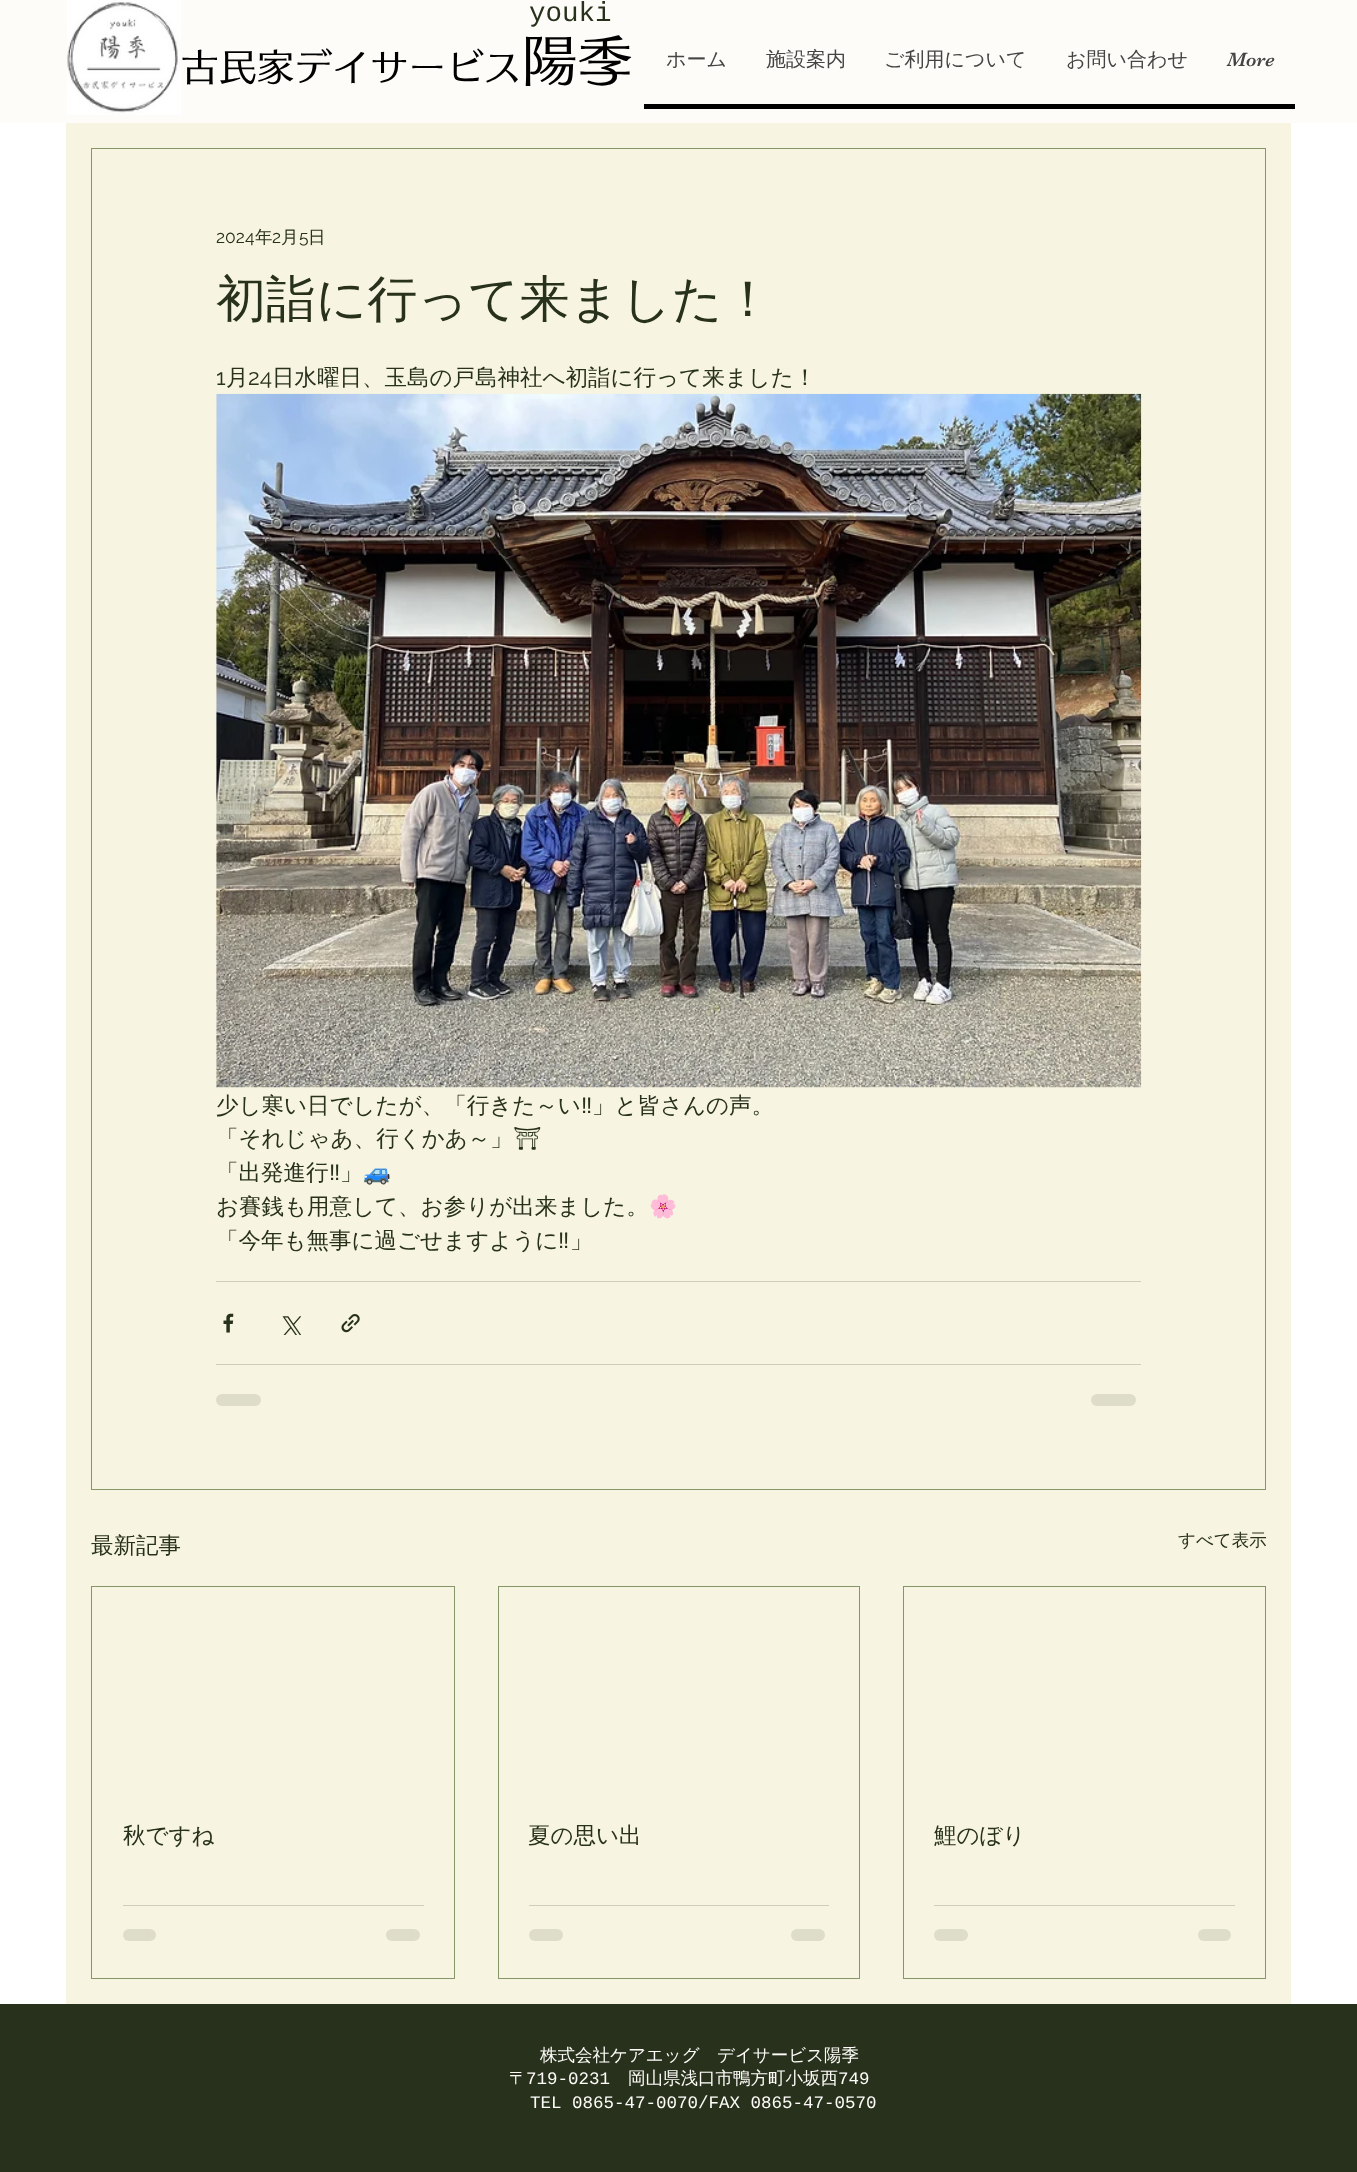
<!DOCTYPE html>
<meta charset="utf-8">
<style>body { margin: 0 } canvas { display: block }</style>
<canvas id="canvas" width="1357" height="2172"></canvas>
<script type="module">
  const canvas = document.getElementById("canvas");
  const ctx = canvas.getContext("2d");
  ctx.miterLimit = 4;
  ctx.fontKerning = "normal";
  async function loadImage(src) {
    const img = new Image();
    img.src = src;
    await img.decode();
    return img;
  }

  ctx.fillStyle = "#ffffff";
  ctx.fillRect(0, 0, 1357, 2172);
  ctx.fillStyle = "#fdfcf9";
  ctx.fillRect(0, 0, 1357, 123);
  ctx.drawImage(await loadImage("img1.png"), 67, 0, 114, 115);
  ctx.font = "27.5px Liberation Mono";
  ctx.fillStyle = "#28311b";
  ctx.fillText("youki", 529, 21);
  ctx.letterSpacing = "0.4px";
  ctx.font = "500 37.5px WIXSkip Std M";
  ctx.fillStyle = "#000000";
  ctx.fillText("古民家デイサービス", 181, 81);
  ctx.font = "500 55px WIXSkip Std M";
  ctx.fillText("陽季", 522, 81);
  ctx.fillRect(644, 104, 651, 5);
  ctx.letterSpacing = "0px";
  ctx.font = "500 20px WenQuanYi Zen Hei";
  ctx.fillStyle = "#444444";
  ctx.fillText("ホーム", 666, 66);
  ctx.fillText("施設案内", 766, 66);
  ctx.fillText("ご利用について", 884, 66);
  ctx.fillText("お問い合わせ", 1066, 66);
  ctx.font = "20px 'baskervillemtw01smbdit'";
  ctx.fillText("More", 1227, 66);
  ctx.fillStyle = "#f7f5e1";
  ctx.fillRect(66, 123, 1225, 1881);
  ctx.strokeStyle = "#869669";
  ctx.strokeRect(91.5, 148.5, 1174, 1341);
  ctx.font = "17.5px Raleway";
  ctx.fillStyle = "#28311b";
  ctx.fillText("2024", 216, 243);
  ctx.font = "500 17.5px WenQuanYi Zen Hei";
  ctx.fillText("年", 255, 243);
  ctx.font = "17.5px Raleway";
  ctx.fillText("2", 272, 243);
  ctx.font = "500 17.5px WenQuanYi Zen Hei";
  ctx.fillText("月", 281, 243);
  ctx.font = "17.5px Raleway";
  ctx.fillText("5", 299, 243);
  ctx.font = "500 17.5px WenQuanYi Zen Hei";
  ctx.fillText("日", 308, 243);
  ctx.font = "500 50px WenQuanYi Zen Hei";
  ctx.fillText("初詣に行って来ました！", 216, 316);
  ctx.font = "22.5px Raleway";
  ctx.fillText("1", 216, 385);
  ctx.font = "500 22.5px WenQuanYi Zen Hei";
  ctx.fillText("月", 226, 385);
  ctx.font = "22.5px Raleway";
  ctx.fillText("24", 248, 385);
  ctx.font = "500 22.5px WenQuanYi Zen Hei";
  ctx.fillText("日水曜日、玉島の戸島神社へ初詣に行って来ました！", 272, 385);
  ctx.drawImage(await loadImage("img2.png"), 216, 393, 926, 695);
  ctx.fillText("少し寒い日でしたが、「行きた～い", 216, 1113);
  ctx.font = "22.5px Liberation Sans";
  ctx.fillText("‼", 581, 1113);
  ctx.font = "500 22.5px WenQuanYi Zen Hei";
  ctx.fillText("」と皆さんの声。", 592, 1113);
  ctx.fillText("「それじゃあ、行くかあ～」", 216, 1146);
  ctx.font = "22.5px Noto Emoji";
  ctx.fillText("⛩", 513, 1146);
  ctx.font = "500 22.5px WenQuanYi Zen Hei";
  ctx.fillText("「出発進行", 216, 1180);
  ctx.font = "22.5px Liberation Sans";
  ctx.fillText("‼", 329, 1180);
  ctx.font = "500 22.5px WenQuanYi Zen Hei";
  ctx.fillText("」", 340, 1180);
  ctx.font = "22.5px Noto Color Emoji";
  ctx.fillText("🚙", 363, 1180);
  ctx.font = "500 22.5px WenQuanYi Zen Hei";
  ctx.fillText("お賽銭も用意して、お参りが出来ました。", 216, 1214);
  ctx.font = "22.5px Noto Color Emoji";
  ctx.fillText("🌸", 649, 1214);
  ctx.font = "500 22.5px WenQuanYi Zen Hei";
  ctx.fillText("「今年も無事に過ごせますように", 216, 1248);
  ctx.font = "22.5px Liberation Sans";
  ctx.fillText("‼", 558, 1248);
  ctx.font = "500 22.5px WenQuanYi Zen Hei";
  ctx.fillText("」", 570, 1248);
  ctx.fillStyle = "#ceceb9";
  ctx.fillRect(216, 1281, 925, 1);
  ctx.drawImage(await loadImage("img3.png"), 223, 1313, 11, 20);
  ctx.drawImage(await loadImage("img4.png"), 282, 1316, 19, 19);
  ctx.drawImage(await loadImage("img5.png"), 341, 1314, 19, 19);
  ctx.fillRect(216, 1364, 925, 1);
  ctx.fillStyle = "#deddc9";
  ctx.beginPath();
  ctx.roundRect(216, 1394, 45, 12, 6);
  ctx.fill();
  ctx.beginPath();
  ctx.roundRect(1091, 1394, 45, 12, 6);
  ctx.fill();
  ctx.fillStyle = "#28311b";
  ctx.fillText("最新記事", 91, 1553);
  ctx.font = "500 17.5px WenQuanYi Zen Hei";
  ctx.fillText("すべて表示", 1178, 1546);
  ctx.strokeRect(91.5, 1586.5, 363, 392);
  ctx.font = "500 22.5px WenQuanYi Zen Hei";
  ctx.fillText("秋ですね", 123, 1843);
  ctx.fillStyle = "#ceceb9";
  ctx.fillRect(123, 1905, 301, 1);
  ctx.fillStyle = "#deddc9";
  ctx.beginPath();
  ctx.roundRect(123, 1929, 33, 12, 6);
  ctx.fill();
  ctx.beginPath();
  ctx.roundRect(386, 1929, 34, 12, 6);
  ctx.fill();
  ctx.strokeRect(498.5, 1586.5, 361, 392);
  ctx.fillStyle = "#28311b";
  ctx.fillText("夏の思い出", 528, 1843);
  ctx.fillStyle = "#ceceb9";
  ctx.fillRect(529, 1905, 300, 1);
  ctx.fillStyle = "#deddc9";
  ctx.beginPath();
  ctx.roundRect(529, 1929, 34, 12, 6);
  ctx.fill();
  ctx.beginPath();
  ctx.roundRect(791, 1929, 34, 12, 6);
  ctx.fill();
  ctx.strokeRect(903.5, 1586.5, 362, 392);
  ctx.fillStyle = "#28311b";
  ctx.fillText("鯉のぼり", 934, 1843);
  ctx.fillStyle = "#ceceb9";
  ctx.fillRect(934, 1905, 301, 1);
  ctx.fillStyle = "#deddc9";
  ctx.beginPath();
  ctx.roundRect(934, 1929, 34, 12, 6);
  ctx.fill();
  ctx.beginPath();
  ctx.roundRect(1198, 1929, 33, 12, 6);
  ctx.fill();
  ctx.fillStyle = "#28311b";
  ctx.fillRect(0, 2004, 1357, 168);
  ctx.font = "500 17.5px WenQuanYi Zen Hei";
  ctx.fillStyle = "#fdfcf9";
  ctx.fillText("株式会社ケアエッグ　デイサービス陽季", 540, 2061);
  ctx.fillText("〒", 509, 2084);
  ctx.font = "17.5px Liberation Mono";
  ctx.fillText("719-0231", 526, 2084);
  ctx.font = "500 17.5px WenQuanYi Zen Hei";
  ctx.fillText("岡山県浅口市鴨方町小坂西", 628, 2084);
  ctx.font = "17.5px Liberation Mono";
  ctx.fillText("749", 838, 2084);
  ctx.fillText("TEL 0865-47-0070/FAX 0865-47-0570", 530, 2108);
</script>
